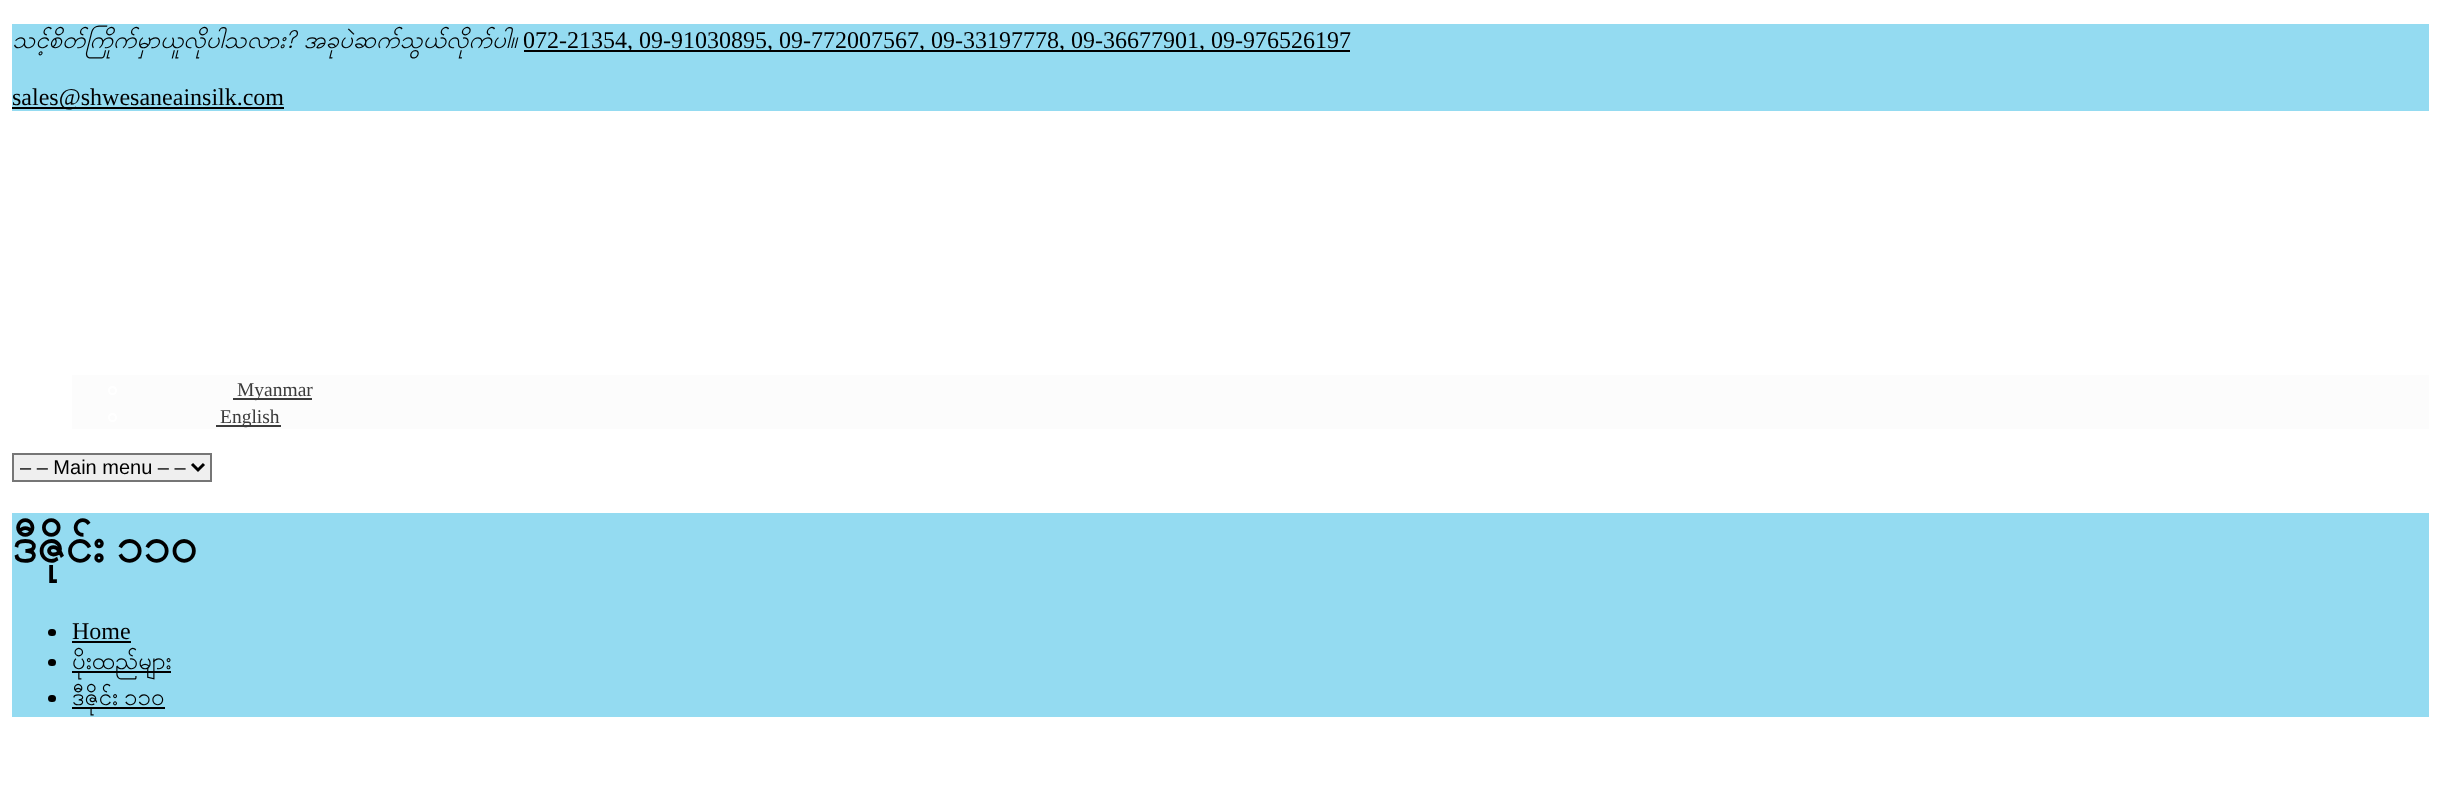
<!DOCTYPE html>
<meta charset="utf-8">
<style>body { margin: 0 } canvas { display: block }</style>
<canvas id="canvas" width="2440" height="797"></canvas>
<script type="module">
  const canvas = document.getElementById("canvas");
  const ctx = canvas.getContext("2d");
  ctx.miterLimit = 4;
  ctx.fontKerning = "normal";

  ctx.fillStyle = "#ffffff";
  ctx.fillRect(0, 0, 2440, 797);
  ctx.fillStyle = "#94dbf1";
  ctx.fillRect(12, 24, 2417, 87);
  ctx.wordSpacing = "-1px";
  ctx.font = "italic 24px Padauk";
  ctx.fillStyle = "#000000";
  ctx.fillText("သင့်စိတ်ကြိုက်မှာယူလိုပါသလား? အခုပဲဆက်သွယ်လိုက်ပါ။", 12, 48);
  ctx.fillRect(524, 50, 826, 2);
  ctx.wordSpacing = "0px";
  ctx.font = "24px Liberation Serif";
  ctx.fillText("072-21354, 09-91030895, 09-772007567, 09-33197778, 09-36677901, 09-976526197", 523, 48);
  ctx.fillRect(12, 107, 272, 2);
  ctx.fillText("sales@shwesaneainsilk.com", 12, 105);
  ctx.fillStyle = "#fcfcfc";
  ctx.fillRect(72, 375, 2357, 54);
  ctx.beginPath();
  ctx.arc(112.5, 390.5, 3.5, 0, Math.PI * 2);
  ctx.strokeStyle = "#ffffff";
  ctx.lineWidth = 2;
  ctx.stroke();
  ctx.fillStyle = "#3c3c3c";
  ctx.fillRect(233, 398, 79, 2);
  ctx.font = "19.5px Liberation Serif";
  ctx.fillText("Myanmar", 237, 396);
  ctx.beginPath();
  ctx.arc(112.5, 417.5, 3.5, 0, Math.PI * 2);
  ctx.stroke();
  ctx.fillRect(216, 425, 65, 2);
  ctx.fillText("English", 220, 423);
  ctx.fillStyle = "#efefef";
  ctx.beginPath();
  ctx.rect(13, 454, 198, 27);
  ctx.fill();
  ctx.strokeStyle = "#767676";
  ctx.stroke();
  ctx.beginPath();
  ctx.moveTo(192, 464);
  ctx.lineTo(198, 470);
  ctx.lineTo(204, 464);
  ctx.strokeStyle = "#000000";
  ctx.lineWidth = 3;
  ctx.stroke();
  ctx.font = "20px Liberation Sans";
  ctx.fillStyle = "#000000";
  ctx.fillText("– – Main menu – –", 20, 474);
  ctx.fillStyle = "#94dbf1";
  ctx.fillRect(12, 513, 2417, 204);
  ctx.wordSpacing = "-6px";
  ctx.font = "bold 48px Padauk";
  ctx.fillStyle = "#000000";
  ctx.fillText("ဒီဇိုင်း ၁၁၀", 12, 562);
  ctx.beginPath();
  ctx.roundRect(48, 629, 8, 7, 3.5);
  ctx.fill();
  ctx.wordSpacing = "0px";
  ctx.font = "24px Liberation Serif";
  ctx.fillText("Home", 72, 639);
  ctx.fillRect(72, 641, 59, 2);
  ctx.beginPath();
  ctx.roundRect(48, 659, 8, 7, 3.5);
  ctx.fill();
  ctx.fillRect(72, 671, 99, 2);
  ctx.font = "24px Padauk";
  ctx.fillText("ပိုးထည်များ", 72, 669);
  ctx.beginPath();
  ctx.roundRect(48, 695, 8, 7, 3.5);
  ctx.fill();
  ctx.fillRect(72, 707, 93, 2);
  ctx.wordSpacing = "-3px";
  ctx.fillText("ဒီဇိုင်း ၁၁၀", 72, 705);
</script>
